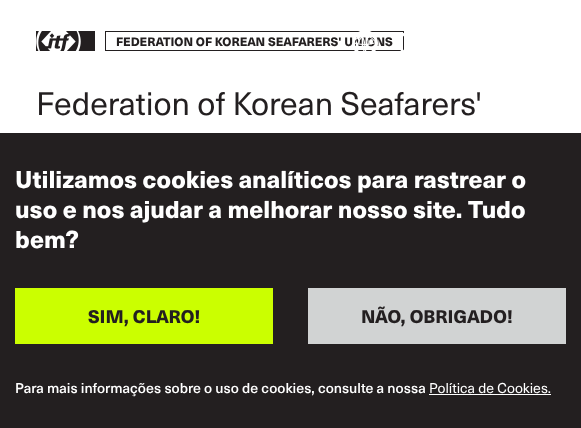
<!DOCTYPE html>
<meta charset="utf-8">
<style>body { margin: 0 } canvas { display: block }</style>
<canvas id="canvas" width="581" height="428"></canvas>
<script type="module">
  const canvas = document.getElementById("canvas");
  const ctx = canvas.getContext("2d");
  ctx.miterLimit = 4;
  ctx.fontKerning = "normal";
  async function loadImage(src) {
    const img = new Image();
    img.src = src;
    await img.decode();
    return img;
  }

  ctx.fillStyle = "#ffffff";
  ctx.fillRect(0, 0, 581, 428);
  ctx.fillStyle = "#231f20";
  ctx.fillRect(36, 31, 59, 20);
  ctx.drawImage(await loadImage("img1.png"), 36, 31, 45, 20);
  ctx.strokeStyle = "#231f20";
  ctx.strokeRect(105.5, 31.5, 298, 19);
  ctx.font = "900 12px 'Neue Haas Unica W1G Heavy'";
  ctx.fillText("FEDERATION OF KOREAN SEAFARERS' UNIONS", 116, 46);
  ctx.drawImage(await loadImage("img2.png"), 353, 31, 25, 20);
  ctx.drawImage(await loadImage("img3.png"), 400, 32, 4, 19);
  ctx.font = "32px 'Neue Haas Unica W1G'";
  ctx.fillText("Federation of Korean Seafarers'", 36, 115);
  ctx.fillRect(0, 133, 581, 295);
  ctx.font = "900 24px 'Neue Haas Unica W1G Heavy'";
  ctx.fillStyle = "#ffffff";
  ctx.fillText("Utilizamos cookies analíticos para rastrear o", 15, 188);
  ctx.fillText("uso e nos ajudar a melhorar nosso site. Tudo", 15, 218);
  ctx.fillText("bem?", 15, 248);
  ctx.fillStyle = "#cbff00";
  ctx.fillRect(15, 288, 258, 56);
  ctx.font = "900 18px 'Neue Haas Unica W1G Heavy'";
  ctx.fillStyle = "#231f20";
  ctx.fillText("SIM, CLARO!", 88, 323);
  ctx.fillStyle = "#d1d3d3";
  ctx.fillRect(308, 288, 258, 56);
  ctx.fillStyle = "#231f20";
  ctx.fillText("NÃO, OBRIGADO!", 361, 323);
  ctx.font = "500 14px 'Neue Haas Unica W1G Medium'";
  ctx.fillStyle = "#ffffff";
  ctx.fillText("Para mais informações sobre o uso de cookies, consulte a nossa", 15, 393);
  ctx.font = "14px 'Neue Haas Unica W1G'";
  ctx.fillText("Política de Cookies.", 429, 393);
  ctx.fillRect(429, 394, 122, 1);
</script>
